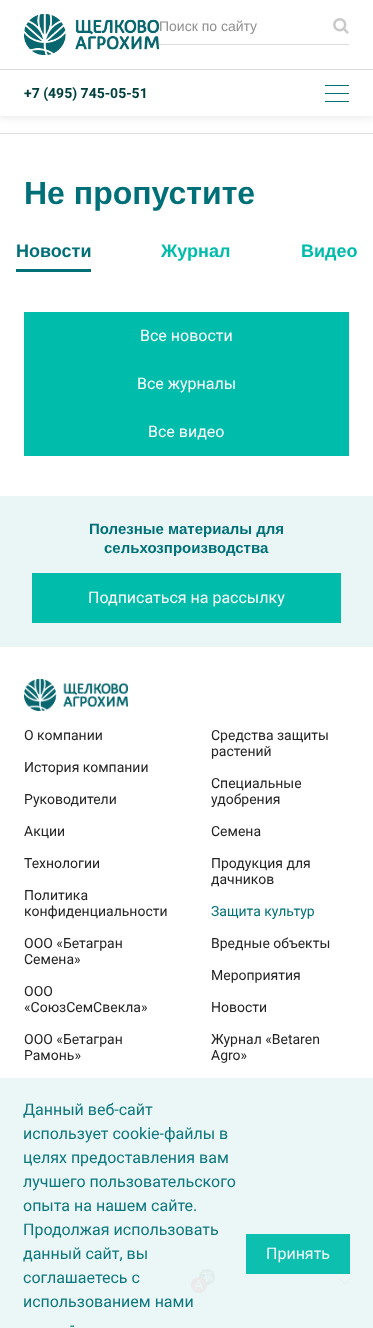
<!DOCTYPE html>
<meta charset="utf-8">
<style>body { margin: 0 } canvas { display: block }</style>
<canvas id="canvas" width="373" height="1328"></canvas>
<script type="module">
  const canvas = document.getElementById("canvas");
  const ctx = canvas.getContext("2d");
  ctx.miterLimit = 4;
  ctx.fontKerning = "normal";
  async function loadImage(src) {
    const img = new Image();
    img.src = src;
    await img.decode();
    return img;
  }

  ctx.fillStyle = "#ffffff";
  ctx.fillRect(0, 0, 373, 1328);
  ctx.fillStyle = "#ebf6f6";
  ctx.fillRect(0, 1078, 373, 250);
  ctx.fillStyle = "rgba(0, 0, 0, 0.1)";
  ctx.filter = "blur(5px)";
  ctx.beginPath();
  ctx.rect(0, 1, 373, 116);
  ctx.fill();
  ctx.filter = "none";
  ctx.fillStyle = "#ffffff";
  ctx.fillRect(0, 0, 373, 116);
  ctx.fillStyle = "#dcdcdc";
  ctx.fillRect(0, 69, 373, 1);
  ctx.drawImage(await loadImage("img1.png"), 24, 14, 135, 41);
  ctx.fillRect(159, 44, 190, 1);
  ctx.font = "14px Liberation Sans";
  ctx.fillStyle = "#8f8f8f";
  ctx.fillText("Поиск по сайту", 159, 31);
  ctx.drawImage(await loadImage("img2.png"), 333, 18, 16, 16);
  ctx.font = "bold 14px Roboto";
  ctx.fillStyle = "#00413f";
  ctx.fillText("+7 (495) 745-05-51", 24, 98);
  ctx.fillStyle = "#007078";
  ctx.fillRect(325, 93, 24, 1);
  ctx.fillRect(325, 85, 24, 1);
  ctx.fillRect(325, 101, 24, 1);
  ctx.fillStyle = "#e0e0e0";
  ctx.fillRect(0, 133, 373, 1);
  ctx.font = "bold 32px Liberation Sans";
  ctx.fillStyle = "#007078";
  ctx.fillText("Не пропустите", 24, 204);
  ctx.font = "bold 18px Liberation Sans";
  ctx.fillText("Новости", 16, 257);
  ctx.fillRect(16, 269, 75, 3);
  ctx.fillStyle = "#00bcab";
  ctx.fillText("Журнал", 161, 257);
  ctx.fillText("Видео", 301, 257);
  ctx.fillRect(24, 312, 325, 144);
  ctx.font = "16px Roboto";
  ctx.fillStyle = "#ffffff";
  ctx.fillText("Все новости", 140, 341);
  ctx.fillText("Все журналы", 137, 389);
  ctx.fillText("Все видео", 148, 437);
  ctx.fillStyle = "#eaf6f6";
  ctx.fillRect(0, 496, 373, 151);
  ctx.font = "bold 15px Liberation Sans";
  ctx.fillStyle = "#007078";
  ctx.fillText("Полезные материалы для", 89, 534);
  ctx.fillText("сельхозпроизводства", 104, 553);
  ctx.fillStyle = "#00bcab";
  ctx.fillRect(32, 573, 309, 50);
  ctx.font = "16px Roboto";
  ctx.fillStyle = "#ffffff";
  ctx.fillText("Подписаться на рассылку", 88, 603);
  ctx.drawImage(await loadImage("img3.png"), 24, 679, 104, 32);
  ctx.font = "14px Roboto";
  ctx.fillStyle = "#242424";
  ctx.fillText("О компании", 24, 740);
  ctx.fillText("Средства защиты", 211, 740);
  ctx.fillText("растений", 211, 756);
  ctx.fillText("История компании", 24, 772);
  ctx.fillText("Руководители", 24, 804);
  ctx.fillText("Специальные", 211, 788);
  ctx.fillText("удобрения", 211, 804);
  ctx.fillText("Акции", 24, 836);
  ctx.fillText("Семена", 211, 836);
  ctx.fillText("Технологии", 24, 868);
  ctx.fillText("Продукция для", 211, 868);
  ctx.fillText("дачников", 211, 884);
  ctx.fillText("Политика", 24, 900);
  ctx.fillText("конфиденциальности", 24, 916);
  ctx.fillStyle = "#007078";
  ctx.fillText("Защита культур", 211, 916);
  ctx.fillStyle = "#242424";
  ctx.fillText("ООО «Бетагран", 24, 948);
  ctx.fillText("Семена»", 24, 964);
  ctx.fillText("Вредные объекты", 211, 948);
  ctx.fillText("Мероприятия", 211, 980);
  ctx.fillText("ООО", 24, 996);
  ctx.fillText("«СоюзСемСвекла»", 24, 1012);
  ctx.fillText("Новости", 211, 1012);
  ctx.fillText("ООО «Бетагран", 24, 1044);
  ctx.fillText("Рамонь»", 24, 1060);
  ctx.fillText("Журнал «Betaren", 211, 1044);
  ctx.fillText("Agro»", 211, 1060);
  ctx.font = "16px Roboto";
  ctx.fillStyle = "#0c777e";
  ctx.fillText("Данный веб-сайт", 23, 1115);
  ctx.fillText("использует cookie-файлы в", 23, 1139);
  ctx.fillText("целях предоставления вам", 23, 1163);
  ctx.fillText("лучшего пользовательского", 23, 1187);
  ctx.fillText("опыта на нашем сайте.", 23, 1211);
  ctx.fillText("Продолжая использовать", 23, 1235);
  ctx.fillText("данный сайт, вы", 23, 1259);
  ctx.fillText("соглашаетесь с", 23, 1283);
  ctx.fillText("использованием нами", 23, 1307);
  ctx.fillText("-", 70, 1331);
  ctx.fillStyle = "rgba(0, 188, 171, 0.95)";
  ctx.fillRect(246, 1234, 104, 40);
  ctx.fillStyle = "#f3fcfb";
  ctx.fillText("Принять", 266, 1259);
  ctx.drawImage(await loadImage("img4.png"), 191, 1269, 24, 24);
  ctx.drawImage(await loadImage("img5.png"), 338, 1277, 14, 8);
</script>
